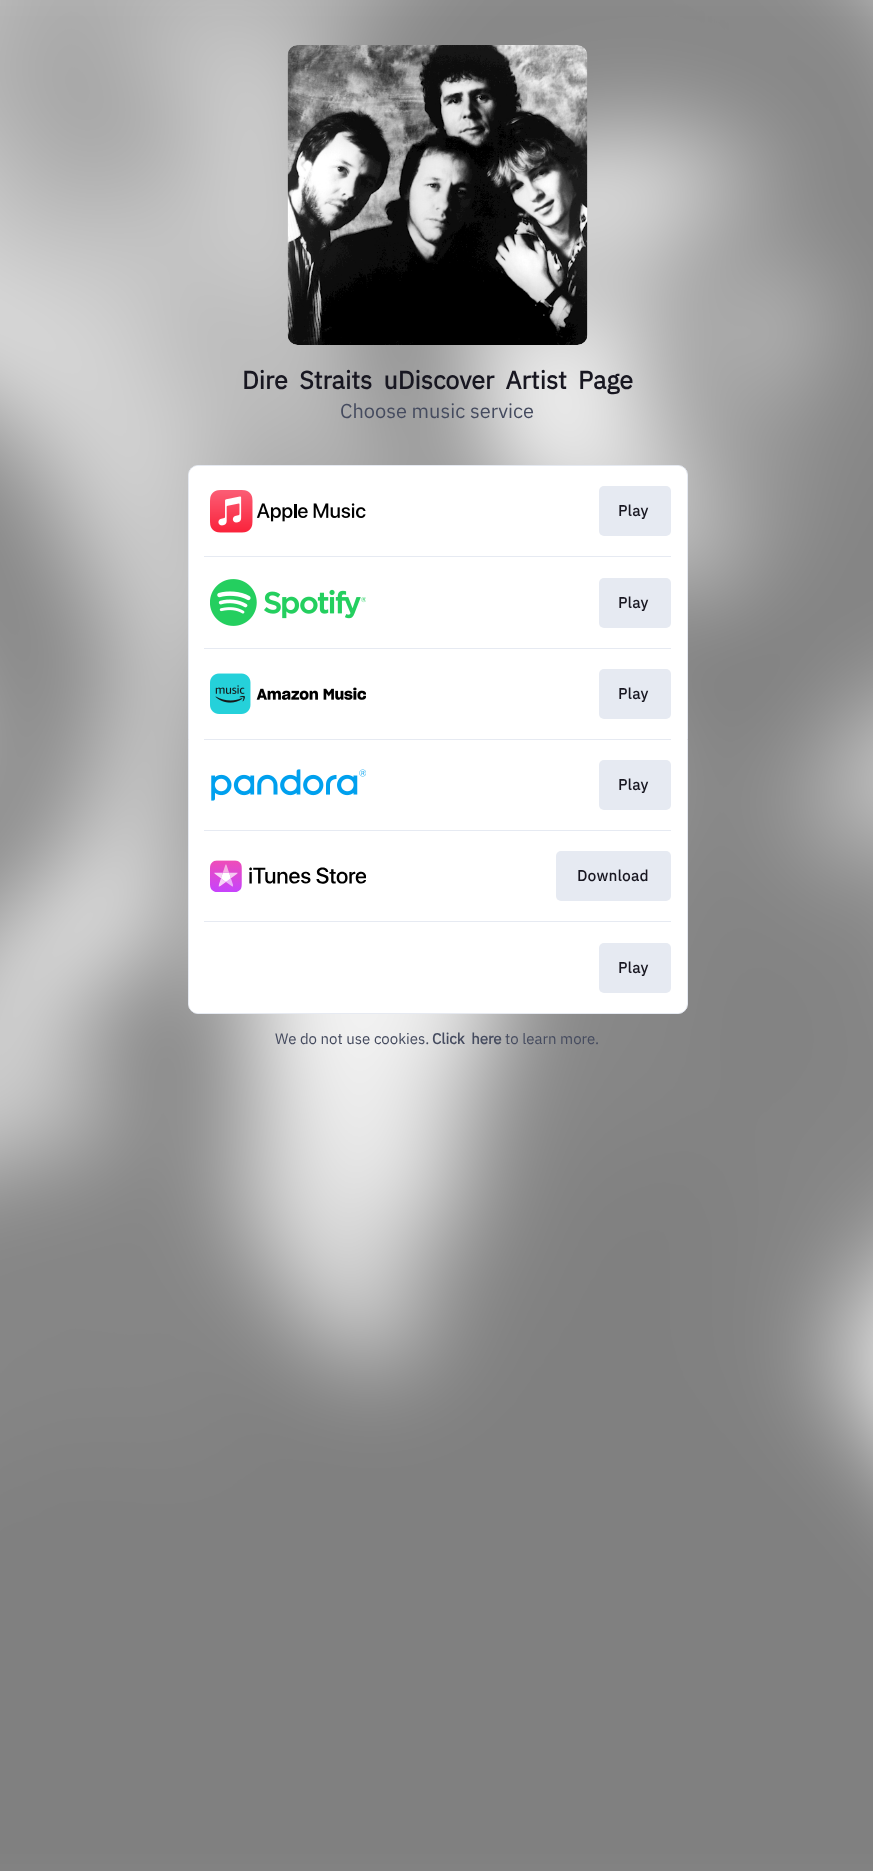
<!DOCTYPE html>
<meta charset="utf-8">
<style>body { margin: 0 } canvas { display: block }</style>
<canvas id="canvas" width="873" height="1871"></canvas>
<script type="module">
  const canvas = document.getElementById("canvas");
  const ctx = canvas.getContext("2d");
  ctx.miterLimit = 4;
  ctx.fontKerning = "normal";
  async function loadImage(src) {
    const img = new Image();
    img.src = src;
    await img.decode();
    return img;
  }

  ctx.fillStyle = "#ffffff";
  ctx.fillRect(0, 0, 873, 1871);
  ctx.drawImage(await loadImage("img1.png"), 0, 0, 873, 1871);
  ctx.drawImage(await loadImage("img2.png"), 287, 45, 301, 300);
  ctx.wordSpacing = "5.5px";
  ctx.font = "bold 25px IBM Plex Sans";
  ctx.fillStyle = "#181721";
  ctx.fillText("Dire Straits uDiscover Artist Page", 242, 389);
  ctx.wordSpacing = "0px";
  ctx.font = "20px IBM Plex Sans";
  ctx.fillStyle = "#454b5f";
  ctx.fillText("Choose music service", 340, 418);
  ctx.fillStyle = "#ffffff";
  ctx.beginPath();
  ctx.roundRect(188.5, 465.5, 499, 548, 9.5);
  ctx.fill();
  ctx.strokeStyle = "#e6eaf2";
  ctx.stroke();
  ctx.beginPath();
  ctx.roundRect(189, 466, 497, 547, 9);
  ctx.fill();
  ctx.drawImage(await loadImage("img3.png"), 210, 490, 156, 43);
  ctx.fillStyle = "#e6eaf2";
  ctx.beginPath();
  ctx.roundRect(599, 486, 72, 50, 5);
  ctx.fill();
  ctx.letterSpacing = "0.5px";
  ctx.font = "bold 15px IBM Plex Sans";
  ctx.fillStyle = "#181721";
  ctx.fillText("Play", 618, 516);
  ctx.fillStyle = "#e6eaf2";
  ctx.fillRect(204, 556, 467, 1);
  ctx.drawImage(await loadImage("img4.png"), 210, 579, 156, 47);
  ctx.beginPath();
  ctx.roundRect(599, 578, 72, 50, 5);
  ctx.fill();
  ctx.fillStyle = "#181721";
  ctx.fillText("Play", 618, 608);
  ctx.fillStyle = "#e6eaf2";
  ctx.fillRect(204, 648, 467, 1);
  ctx.drawImage(await loadImage("img5.png"), 210, 673, 156, 41);
  ctx.beginPath();
  ctx.roundRect(599, 669, 72, 50, 5);
  ctx.fill();
  ctx.fillStyle = "#181721";
  ctx.fillText("Play", 618, 699);
  ctx.fillStyle = "#e6eaf2";
  ctx.fillRect(204, 739, 467, 1);
  ctx.drawImage(await loadImage("img6.png"), 211, 769, 155, 32);
  ctx.beginPath();
  ctx.roundRect(599, 760, 72, 50, 5);
  ctx.fill();
  ctx.fillStyle = "#181721";
  ctx.fillText("Play", 618, 790);
  ctx.fillStyle = "#e6eaf2";
  ctx.fillRect(204, 830, 467, 1);
  ctx.drawImage(await loadImage("img7.png"), 210, 860, 156, 32);
  ctx.beginPath();
  ctx.roundRect(556, 851, 115, 50, 5);
  ctx.fill();
  ctx.fillStyle = "#181721";
  ctx.fillText("Download", 577, 881);
  ctx.fillStyle = "#e6eaf2";
  ctx.fillRect(204, 921, 467, 1);
  ctx.beginPath();
  ctx.roundRect(599, 943, 72, 50, 5);
  ctx.fill();
  ctx.fillStyle = "#181721";
  ctx.fillText("Play", 618, 973);
  ctx.letterSpacing = "0px";
  ctx.font = "15px IBM Plex Sans";
  ctx.fillStyle = "#454b5f";
  ctx.fillText("We do not use cookies.", 275, 1044);
  ctx.wordSpacing = "3px";
  ctx.font = "bold 15px IBM Plex Sans";
  ctx.fillText("Click here", 432, 1044);
  ctx.wordSpacing = "0px";
  ctx.font = "15px IBM Plex Sans";
  ctx.fillText("to learn more.", 505, 1044);
</script>
